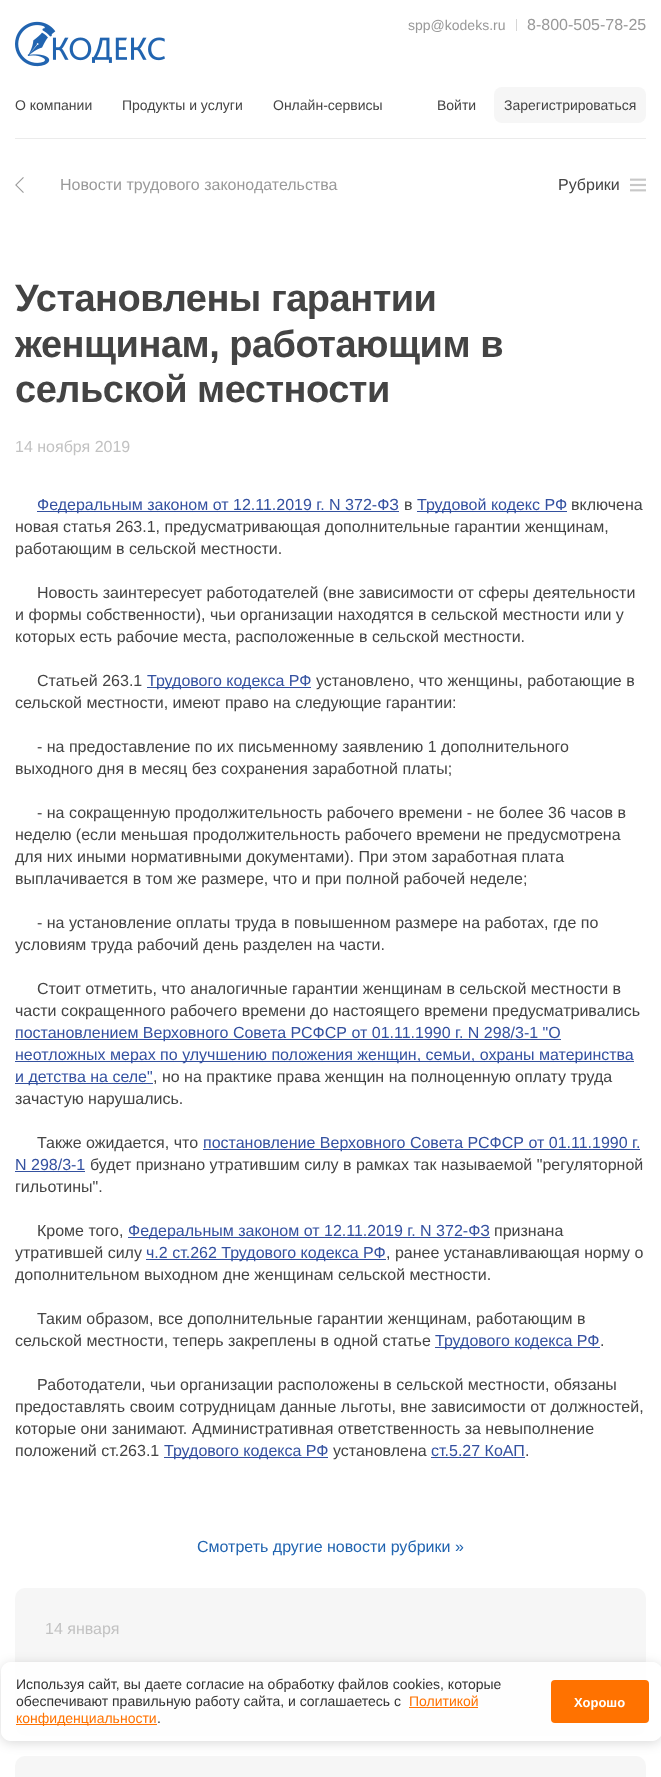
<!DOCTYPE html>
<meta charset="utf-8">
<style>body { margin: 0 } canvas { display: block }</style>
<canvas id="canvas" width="661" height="1777"></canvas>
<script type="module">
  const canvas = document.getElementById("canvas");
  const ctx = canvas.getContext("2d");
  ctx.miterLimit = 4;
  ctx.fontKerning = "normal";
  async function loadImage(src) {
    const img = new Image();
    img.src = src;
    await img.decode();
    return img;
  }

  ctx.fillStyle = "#ffffff";
  ctx.fillRect(0, 0, 661, 1777);
  ctx.fillStyle = "#ebebeb";
  ctx.fillRect(15, 138, 631, 1);
  ctx.drawImage(await loadImage("img1.png"), 15, 21, 150, 46);
  ctx.font = "14px Liberation Sans";
  ctx.fillStyle = "#999999";
  ctx.fillText("spp@kodeks.ru", 408, 30);
  ctx.fillStyle = "#d6d6d6";
  ctx.fillRect(516, 19, 1, 12);
  ctx.font = "16px Liberation Sans";
  ctx.fillStyle = "#999999";
  ctx.fillText("8-800-505-78-25", 527, 30);
  ctx.font = "14px Liberation Sans";
  ctx.fillStyle = "#444444";
  ctx.fillText("О компании", 15, 110);
  ctx.fillText("Продукты и услуги", 122, 110);
  ctx.fillText("Онлайн-сервисы", 273, 110);
  ctx.fillText("Войти", 437, 110);
  ctx.fillStyle = "#f6f6f6";
  ctx.beginPath();
  ctx.roundRect(494, 87, 152, 36, 8);
  ctx.fill();
  ctx.fillStyle = "#444444";
  ctx.fillText("Зарегистрироваться", 504, 110);
  ctx.drawImage(await loadImage("img2.png"), 15, 177, 9, 16);
  ctx.font = "16px Liberation Sans";
  ctx.fillStyle = "#999999";
  ctx.fillText("Новости трудового законодательства", 60, 190);
  ctx.fillStyle = "#444444";
  ctx.fillText("Рубрики", 558, 190);
  ctx.drawImage(await loadImage("img3.png"), 630, 178, 16, 14);
  ctx.letterSpacing = "-0.5px";
  ctx.font = "bold 38px Liberation Sans";
  ctx.fillText("Установлены гарантии", 15, 311);
  ctx.fillText("женщинам, работающим в", 15, 357);
  ctx.fillText("сельской местности", 15, 402);
  ctx.letterSpacing = "0px";
  ctx.font = "16px Liberation Sans";
  ctx.fillStyle = "#c2c2c2";
  ctx.fillText("14 ноября 2019", 15, 452);
  ctx.fillStyle = "#3451a0";
  ctx.fillRect(37, 511, 362, 1);
  ctx.fillText("Федеральным законом от 12.11.2019 г. N 372-ФЗ", 37, 510);
  ctx.fillStyle = "#444444";
  ctx.fillText("в", 404, 510);
  ctx.fillStyle = "#3451a0";
  ctx.fillRect(417, 511, 150, 1);
  ctx.fillText("Трудовой кодекс РФ", 417, 510);
  ctx.fillStyle = "#444444";
  ctx.fillText("включена", 571, 510);
  ctx.fillText("новая статья 263.1, предусматривающая дополнительные гарантии женщинам,", 15, 532);
  ctx.fillText("работающим в сельской местности.", 15, 554);
  ctx.fillText("Новость заинтересует работодателей (вне зависимости от сферы деятельности", 37, 598);
  ctx.fillText("и формы собственности), чьи организации находятся в сельской местности или у", 15, 620);
  ctx.fillText("которых есть рабочие места, расположенные в сельской местности.", 15, 642);
  ctx.fillText("Статьей 263.1", 37, 686);
  ctx.fillStyle = "#3451a0";
  ctx.fillRect(147, 687, 164, 1);
  ctx.fillText("Трудового кодекса РФ", 147, 686);
  ctx.fillStyle = "#444444";
  ctx.fillText("установлено, что женщины, работающие в", 316, 686);
  ctx.fillText("сельской местности, имеют право на следующие гарантии:", 15, 708);
  ctx.fillText("- на предоставление по их письменному заявлению 1 дополнительного", 37, 752);
  ctx.fillText("выходного дня в месяц без сохранения заработной платы;", 15, 774);
  ctx.fillText("- на сокращенную продолжительность рабочего времени - не более 36 часов в", 37, 818);
  ctx.fillText("неделю (если меньшая продолжительность рабочего времени не предусмотрена", 15, 840);
  ctx.fillText("для них иными нормативными документами). При этом заработная плата", 15, 862);
  ctx.fillText("выплачивается в том же размере, что и при полной рабочей неделе;", 15, 884);
  ctx.fillText("- на установление оплаты труда в повышенном размере на работах, где по", 37, 928);
  ctx.fillText("условиям труда рабочий день разделен на части.", 15, 950);
  ctx.fillText("Стоит отметить, что аналогичные гарантии женщинам в сельской местности в", 37, 994);
  ctx.fillText("части сокращенного рабочего времени до настоящего времени предусматривались", 15, 1016);
  ctx.fillStyle = "#3451a0";
  ctx.fillRect(15, 1039, 546, 1);
  ctx.fillText("постановлением Верховного Совета РСФСР от 01.11.1990 г. N 298/3-1 \"О", 15, 1038);
  ctx.fillRect(15, 1061, 619, 1);
  ctx.fillText("неотложных мерах по улучшению положения женщин, семьи, охраны материнства", 15, 1060);
  ctx.fillRect(15, 1083, 138, 1);
  ctx.fillText("и детства на селе\"", 15, 1082);
  ctx.fillStyle = "#444444";
  ctx.fillText(", но на практике права женщин на полноценную оплату труда", 153, 1082);
  ctx.fillText("зачастую нарушались.", 15, 1104);
  ctx.fillText("Также ожидается, что", 37, 1148);
  ctx.fillStyle = "#3451a0";
  ctx.fillRect(203, 1149, 437, 1);
  ctx.fillText("постановление Верховного Совета РСФСР от 01.11.1990 г.", 203, 1148);
  ctx.fillText("N 298/3-1", 15, 1170);
  ctx.fillRect(15, 1171, 70, 1);
  ctx.fillStyle = "#444444";
  ctx.fillText("будет признано утратившим силу в рамках так называемой \"регуляторной", 90, 1170);
  ctx.fillText("гильотины\".", 15, 1192);
  ctx.fillText("Кроме того,", 37, 1236);
  ctx.fillStyle = "#3451a0";
  ctx.fillRect(128, 1237, 362, 1);
  ctx.fillText("Федеральным законом от 12.11.2019 г. N 372-ФЗ", 128, 1236);
  ctx.fillStyle = "#444444";
  ctx.fillText("признана", 494, 1236);
  ctx.fillText("утратившей силу", 15, 1258);
  ctx.fillStyle = "#3451a0";
  ctx.fillRect(146, 1259, 240, 1);
  ctx.fillText("ч.2 ст.262 Трудового кодекса РФ", 146, 1258);
  ctx.fillStyle = "#444444";
  ctx.fillText(", ранее устанавливающая норму о", 386, 1258);
  ctx.fillText("дополнительном выходном дне женщинам сельской местности.", 15, 1280);
  ctx.fillText("Таким образом, все дополнительные гарантии женщинам, работающим в", 37, 1324);
  ctx.fillText("сельской местности, теперь закреплены в одной статье", 15, 1346);
  ctx.fillStyle = "#3451a0";
  ctx.fillRect(435, 1347, 165, 1);
  ctx.fillText("Трудового кодекса РФ", 435, 1346);
  ctx.fillStyle = "#444444";
  ctx.fillText(".", 600, 1346);
  ctx.fillText("Работодатели, чьи организации расположены в сельской местности, обязаны", 37, 1390);
  ctx.fillText("предоставлять своим сотрудницам данные льготы, вне зависимости от должностей,", 15, 1412);
  ctx.fillText("которые они занимают. Административная ответственность за невыполнение", 15, 1434);
  ctx.fillText("положений ст.263.1", 15, 1456);
  ctx.fillStyle = "#3451a0";
  ctx.fillRect(164, 1457, 164, 1);
  ctx.fillText("Трудового кодекса РФ", 164, 1456);
  ctx.fillStyle = "#444444";
  ctx.fillText("установлена", 333, 1456);
  ctx.fillStyle = "#3451a0";
  ctx.fillText("ст.5.27 КоАП", 431, 1456);
  ctx.fillRect(431, 1457, 94, 1);
  ctx.fillStyle = "#444444";
  ctx.fillText(".", 525, 1456);
  ctx.fillStyle = "#2164b0";
  ctx.fillText("Смотреть другие новости рубрики »", 197, 1552);
  ctx.fillStyle = "#f6f6f6";
  ctx.beginPath();
  ctx.roundRect(15, 1588, 631, 148, 10);
  ctx.fill();
  ctx.fillStyle = "#c2c2c2";
  ctx.fillText("14 января", 45, 1634);
  ctx.fillStyle = "#f6f6f6";
  ctx.beginPath();
  ctx.roundRect(15, 1756, 631, 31, 10);
  ctx.fill();
  ctx.save();
  ctx.beginPath();
  ctx.moveTo(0, 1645);
  ctx.lineTo(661, 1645);
  ctx.lineTo(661, 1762);
  ctx.lineTo(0, 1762);
  ctx.closePath();
  ctx.moveTo(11, 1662);
  ctx.lineTo(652, 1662);
  ctx.bezierCurveTo(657.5, 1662, 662, 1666.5, 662, 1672);
  ctx.lineTo(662, 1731);
  ctx.bezierCurveTo(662, 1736.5, 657.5, 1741, 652, 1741);
  ctx.lineTo(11, 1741);
  ctx.bezierCurveTo(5.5, 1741, 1, 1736.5, 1, 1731);
  ctx.lineTo(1, 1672);
  ctx.bezierCurveTo(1, 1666.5, 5.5, 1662, 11, 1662);
  ctx.closePath();
  ctx.clip("evenodd");
  ctx.fillStyle = "rgba(0, 0, 0, 0.15)";
  ctx.filter = "blur(6px)";
  ctx.beginPath();
  ctx.roundRect(1, 1664, 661, 79, 10);
  ctx.fill();
  ctx.filter = "none";
  ctx.restore();
  ctx.fillStyle = "rgba(255, 255, 255, 0.9)";
  ctx.beginPath();
  ctx.roundRect(1, 1662, 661, 79, 10);
  ctx.fill();
  ctx.font = "14px Liberation Sans";
  ctx.fillStyle = "#333333";
  ctx.fillText("Используя сайт, вы даете согласие на обработку файлов cookies, которые", 16, 1689);
  ctx.fillText("обеспечивают правильную работу сайта, и соглашаетесь с", 16, 1706);
  ctx.fillStyle = "#ff7200";
  ctx.fillText("Политикой", 409, 1706);
  ctx.fillRect(409, 1707, 69, 1);
  ctx.fillRect(16, 1724, 141, 1);
  ctx.fillText("конфиденциальности", 16, 1723);
  ctx.fillStyle = "#333333";
  ctx.fillText(".", 157, 1723);
  ctx.fillStyle = "#ff7200";
  ctx.beginPath();
  ctx.roundRect(551, 1680, 98, 43, 4);
  ctx.fill();
  ctx.font = "bold 13px Liberation Sans";
  ctx.fillStyle = "#ffffff";
  ctx.fillText("Хорошо", 574, 1707);
</script>
